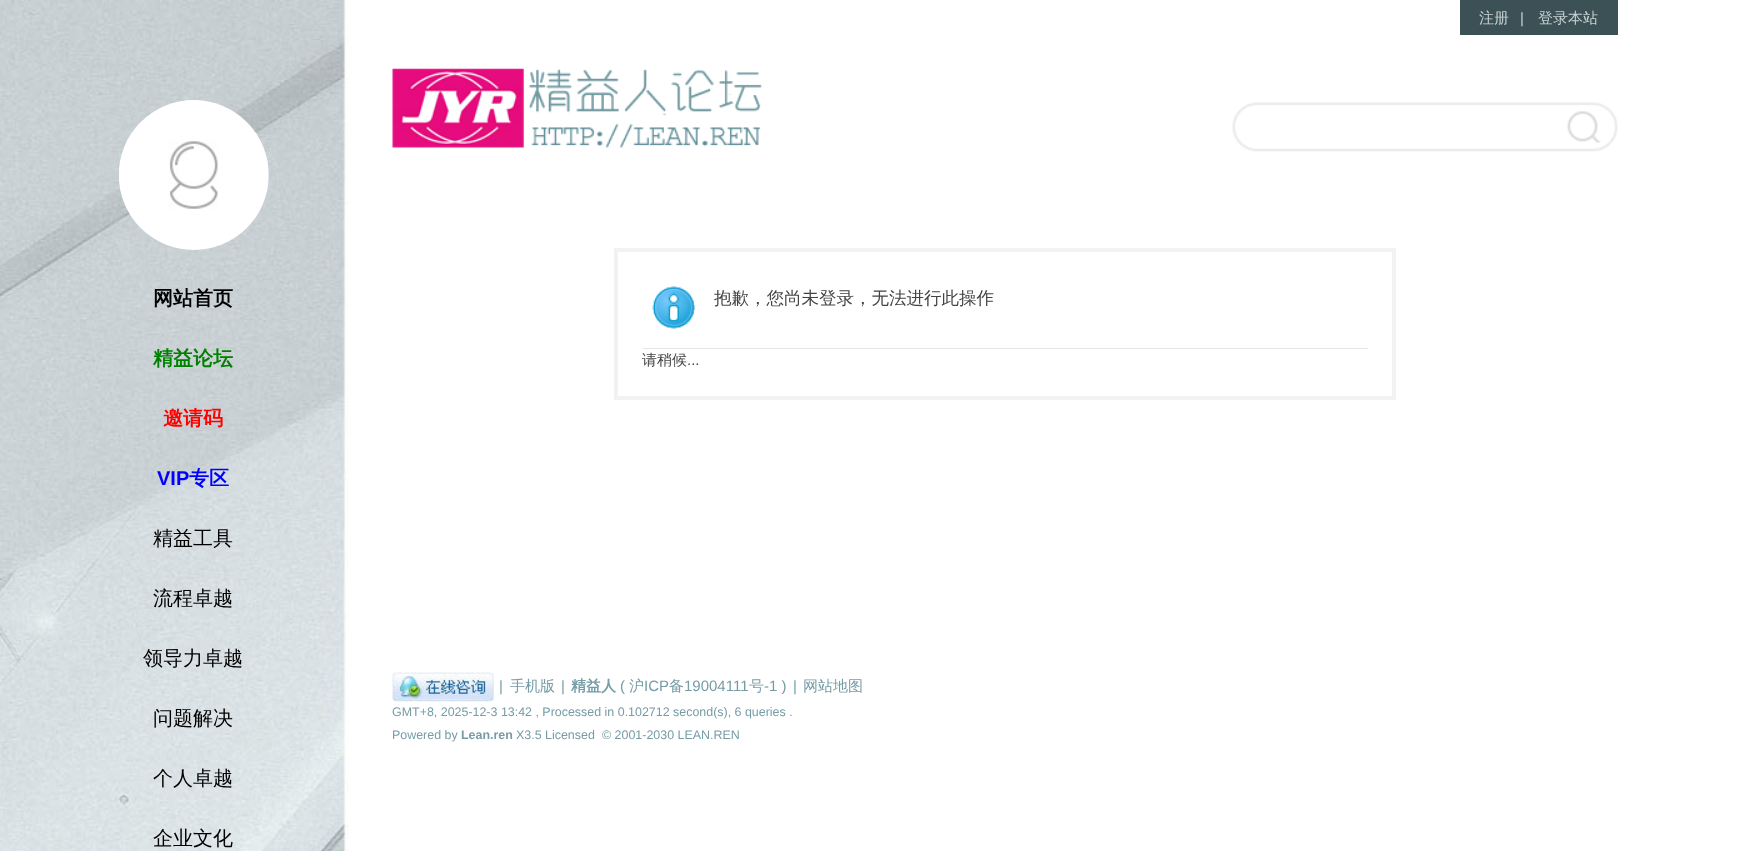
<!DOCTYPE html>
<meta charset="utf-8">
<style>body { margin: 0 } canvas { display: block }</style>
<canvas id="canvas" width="1738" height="851"></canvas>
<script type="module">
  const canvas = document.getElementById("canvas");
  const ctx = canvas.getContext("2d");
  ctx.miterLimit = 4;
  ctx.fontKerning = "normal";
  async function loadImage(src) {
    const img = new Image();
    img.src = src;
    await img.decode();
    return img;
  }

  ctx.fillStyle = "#ffffff";
  ctx.fillRect(0, 0, 1738, 851);
  ctx.drawImage(await loadImage("img1.png"), 0, 0, 349, 851);
  ctx.drawImage(await loadImage("img2.png"), 119, 100, 150, 150);
  ctx.font = "bold 20px WenQuanYi Zen Hei";
  ctx.fillStyle = "#000000";
  ctx.fillText("网站首页", 153, 305);
  ctx.fillStyle = "#008000";
  ctx.fillText("精益论坛", 153, 365);
  ctx.fillStyle = "#ff0000";
  ctx.fillText("邀请码", 163, 425);
  ctx.font = "bold 20px Liberation Sans";
  ctx.fillStyle = "#0000ff";
  ctx.fillText("VIP", 157, 485);
  ctx.font = "bold 20px WenQuanYi Zen Hei";
  ctx.fillText("专区", 189, 485);
  ctx.font = "500 20px WenQuanYi Zen Hei";
  ctx.fillStyle = "#000000";
  ctx.fillText("精益工具", 153, 545);
  ctx.fillText("流程卓越", 153, 605);
  ctx.fillText("领导力卓越", 143, 665);
  ctx.fillText("问题解决", 153, 725);
  ctx.fillText("个人卓越", 153, 785);
  ctx.fillText("企业文化", 153, 845);
  ctx.fillStyle = "#3b5155";
  ctx.fillRect(1460, 0, 158, 35);
  ctx.font = "500 15px WenQuanYi Zen Hei";
  ctx.fillStyle = "#c7d1d3";
  ctx.fillText("注册", 1479, 23);
  ctx.font = "15px Liberation Sans";
  ctx.fillText("|", 1520, 23);
  ctx.font = "500 15px WenQuanYi Zen Hei";
  ctx.fillText("登录本站", 1538, 23);
  ctx.drawImage(await loadImage("img3.png"), 392, 68, 370, 80);
  ctx.drawImage(await loadImage("img4.png"), 1232, 102, 386, 50);
  ctx.strokeStyle = "#f2f2f2";
  ctx.lineWidth = 4;
  ctx.strokeRect(616, 250, 778, 148);
  ctx.drawImage(await loadImage("img5.png"), 652, 286, 43, 43);
  ctx.font = "500 17.5px WenQuanYi Zen Hei";
  ctx.fillStyle = "#444444";
  ctx.fillText("抱歉，您尚未登录，无法进行此操作", 714, 304);
  ctx.fillStyle = "#e4e6e6";
  ctx.fillRect(643, 348, 725, 1);
  ctx.font = "500 15px WenQuanYi Zen Hei";
  ctx.fillStyle = "#444444";
  ctx.fillText("请稍候", 642, 365);
  ctx.font = "15px Liberation Sans";
  ctx.fillText("...", 687, 365);
  ctx.drawImage(await loadImage("img6.png"), 392, 672, 102, 30);
  ctx.fillStyle = "#769ca6";
  ctx.fillText("|", 499, 691);
  ctx.font = "500 15px WenQuanYi Zen Hei";
  ctx.fillText("手机版", 510, 691);
  ctx.font = "15px Liberation Sans";
  ctx.fillText("|", 561, 691);
  ctx.font = "bold 15px WenQuanYi Zen Hei";
  ctx.fillText("精益人", 571, 691);
  ctx.font = "15px Liberation Sans";
  ctx.fillText("(", 620, 691);
  ctx.font = "500 15px WenQuanYi Zen Hei";
  ctx.fillText("沪", 629, 691);
  ctx.font = "15px Liberation Sans";
  ctx.fillText("ICP", 644, 691);
  ctx.font = "500 15px WenQuanYi Zen Hei";
  ctx.fillText("备", 669, 691);
  ctx.font = "15px Liberation Sans";
  ctx.fillText("19004111", 684, 691);
  ctx.font = "500 15px WenQuanYi Zen Hei";
  ctx.fillText("号", 749, 691);
  ctx.font = "15px Liberation Sans";
  ctx.fillText("-1 )", 764, 691);
  ctx.fillText("|", 793, 691);
  ctx.font = "500 15px WenQuanYi Zen Hei";
  ctx.fillText("网站地图", 803, 691);
  ctx.font = "12.45px Liberation Sans";
  ctx.fillText("GMT+8, 2025-12-3 13:42 , Processed in 0.102712 second(s), 6 queries .", 392, 716);
  ctx.fillText("Powered by", 392, 739);
  ctx.font = "bold 12.45px Liberation Sans";
  ctx.fillText("Lean.ren", 461, 739);
  ctx.font = "12.45px Liberation Sans";
  ctx.fillText("X3.5 Licensed", 516, 739);
  ctx.fillText("© 2001-2030 LEAN.REN", 602, 739);
</script>
